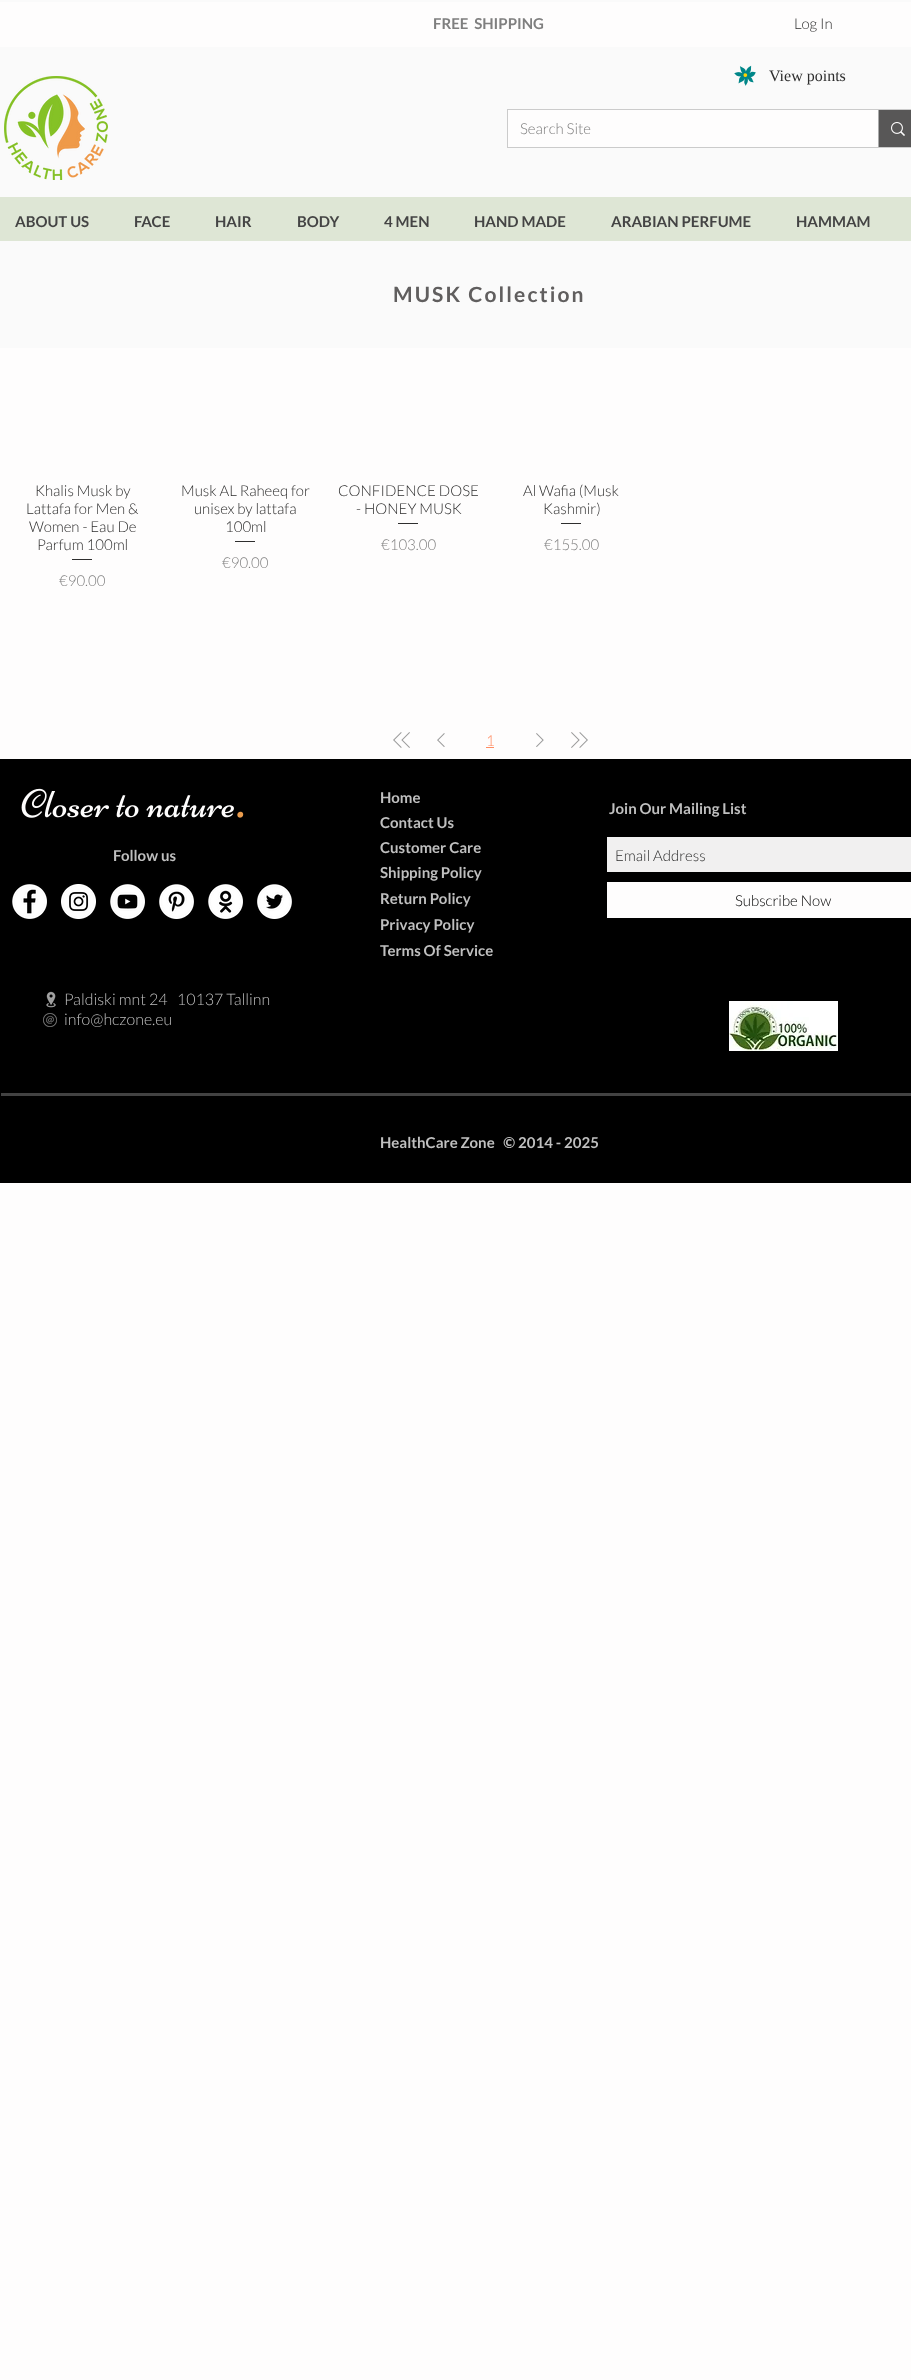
<!DOCTYPE html>
<meta charset="utf-8">
<style>body { margin: 0 } canvas { display: block }</style>
<canvas id="canvas" width="911" height="2380"></canvas>
<script type="module">
  const canvas = document.getElementById("canvas");
  const ctx = canvas.getContext("2d");
  ctx.miterLimit = 4;
  ctx.fontKerning = "normal";
  async function loadImage(src) {
    const img = new Image();
    img.src = src;
    await img.decode();
    return img;
  }

  ctx.fillStyle = "#fefdfd";
  ctx.fillRect(0, 0, 911, 2380);
  ctx.fillStyle = "#fafafa";
  ctx.fillRect(0, 0, 911, 197);
  ctx.fillStyle = "#fefdfd";
  ctx.fillRect(0, 2, 911, 45);
  ctx.font = "bold 15px Lato";
  ctx.fillStyle = "#7f7f7f";
  ctx.fillText("FREE  SHIPPING", 433, 29);
  ctx.font = "300 15px Lato";
  ctx.fillStyle = "#2e2e2e";
  ctx.fillText("Log In", 794, 29);
  ctx.drawImage(await loadImage("img1.png"), 4, 76, 104, 104);
  ctx.strokeStyle = "#cbcbcb";
  ctx.strokeRect(507.5, 109.5, 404, 38);
  ctx.fillStyle = "#fefdfd";
  ctx.fillRect(508, 110, 370, 37);
  ctx.fillStyle = "#7f7f7f";
  ctx.fillText("Search Site", 520, 134);
  ctx.fillStyle = "#585757";
  ctx.fillRect(879, 110, 32, 37);
  ctx.fillStyle = "#aaaaaa";
  ctx.fillRect(878, 110, 1, 37);
  ctx.drawImage(await loadImage("img2.png"), 891, 122, 14, 14);
  ctx.drawImage(await loadImage("img3.png"), 734, 65, 22, 21);
  ctx.font = "16px Liberation Serif";
  ctx.fillStyle = "#2e2e2e";
  ctx.fillText("View points", 769, 81);
  ctx.fillStyle = "#dee6d5";
  ctx.fillRect(0, 197, 911, 44);
  ctx.font = "bold 15px Lato";
  ctx.fillStyle = "#444444";
  ctx.fillText("ABOUT US", 15, 227);
  ctx.fillText("FACE", 134, 227);
  ctx.fillText("HAIR", 215, 227);
  ctx.fillText("BODY", 297, 227);
  ctx.fillText("4 MEN", 384, 227);
  ctx.fillText("HAND MADE", 474, 227);
  ctx.fillText("ARABIAN PERFUME", 611, 227);
  ctx.fillText("HAMMAM", 796, 227);
  ctx.fillStyle = "#fafafa";
  ctx.fillRect(0, 241, 911, 107);
  ctx.letterSpacing = "2.1px";
  ctx.font = "bold 21px Lato";
  ctx.fillStyle = "#605e5e";
  ctx.fillText("MUSK Collection", 393, 302);
  ctx.letterSpacing = "0px";
  ctx.font = "300 15px Lato";
  ctx.fillStyle = "#2e2e2e";
  ctx.fillText("Khalis Musk by", 35, 496);
  ctx.fillText("Lattafa for Men &", 26, 514);
  ctx.fillText("Women - Eau De", 29, 532);
  ctx.fillText("Parfum 100ml", 37, 550);
  ctx.fillRect(72, 559, 20, 1);
  ctx.fillStyle = "#7f7f7f";
  ctx.fillText("€90.00", 59, 586);
  ctx.fillStyle = "#2e2e2e";
  ctx.fillText("Musk AL Raheeq for", 181, 496);
  ctx.fillText("unisex by lattafa", 194, 514);
  ctx.fillText("100ml", 225, 532);
  ctx.fillRect(235, 541, 20, 1);
  ctx.fillStyle = "#7f7f7f";
  ctx.fillText("€90.00", 222, 568);
  ctx.fillStyle = "#2e2e2e";
  ctx.fillText("CONFIDENCE DOSE", 338, 496);
  ctx.fillText("- HONEY MUSK", 356, 514);
  ctx.fillRect(398, 523, 20, 1);
  ctx.fillStyle = "#7f7f7f";
  ctx.fillText("€103.00", 381, 550);
  ctx.fillStyle = "#2e2e2e";
  ctx.fillText("Al Wafia (Musk", 523, 496);
  ctx.fillText("Kashmir)", 543, 514);
  ctx.fillRect(561, 523, 20, 1);
  ctx.fillStyle = "#7f7f7f";
  ctx.fillText("€155.00", 544, 550);
  ctx.drawImage(await loadImage("img4.png"), 393, 732, 17, 16);
  ctx.drawImage(await loadImage("img5.png"), 437, 733, 8, 14);
  ctx.fillStyle = "#ff8c62";
  ctx.fillText("1", 486, 746);
  ctx.fillRect(486, 747, 8, 1);
  ctx.drawImage(await loadImage("img6.png"), 536, 733, 8, 14);
  ctx.drawImage(await loadImage("img7.png"), 571, 732, 17, 16);
  ctx.fillStyle = "#000000";
  ctx.fillRect(0, 759, 911, 424);
  ctx.drawImage(await loadImage("img8.png"), 21, 788, 213, 30);
  ctx.drawImage(await loadImage("img9.png"), 237, 811, 7, 7);
  ctx.font = "bold 15px Lato";
  ctx.fillStyle = "#bfbfbf";
  ctx.fillText("Follow us", 113, 861);
  ctx.drawImage(await loadImage("img10.png"), 12, 884, 35, 35);
  ctx.drawImage(await loadImage("img11.png"), 61, 884, 35, 35);
  ctx.drawImage(await loadImage("img12.png"), 110, 884, 35, 35);
  ctx.drawImage(await loadImage("img13.png"), 159, 884, 35, 35);
  ctx.drawImage(await loadImage("img14.png"), 208, 884, 35, 35);
  ctx.drawImage(await loadImage("img15.png"), 257, 884, 35, 35);
  ctx.fillText("Home", 380, 803);
  ctx.fillText("Contact Us", 380, 828);
  ctx.fillText("Customer Care", 380, 853);
  ctx.fillText("Shipping Policy", 380, 878);
  ctx.fillText("Return Policy", 380, 904);
  ctx.fillText("Privacy Policy", 380, 930);
  ctx.fillText("Terms Of Service", 380, 956);
  ctx.fillText("Join Our Mailing List", 609, 814);
  ctx.fillStyle = "#f1f0f0";
  ctx.fillRect(607, 837, 304, 35);
  ctx.font = "300 15px Lato";
  ctx.fillStyle = "#2e2e2e";
  ctx.fillText("Email Address", 615, 861);
  ctx.fillStyle = "#fefdfd";
  ctx.fillRect(607, 882, 304, 36);
  ctx.fillStyle = "#000000";
  ctx.fillText("Subscribe Now", 735, 906);
  ctx.drawImage(await loadImage("img16.png"), 46, 991, 10, 17);
  ctx.font = "300 16px Lato";
  ctx.fillStyle = "#bfbfbf";
  ctx.fillText("Paldiski mnt 24   10137 Tallinn", 64, 1005);
  ctx.fillText("info@hczone.eu", 64, 1025);
  ctx.drawImage(await loadImage("img17.png"), 43, 1013, 14, 14);
  ctx.drawImage(await loadImage("img18.png"), 729, 1001, 109, 50);
  ctx.fillStyle = "#424242";
  ctx.fillRect(1, 1093, 910, 3);
  ctx.font = "bold 15px Lato";
  ctx.fillStyle = "#bfbfbf";
  ctx.fillText("HealthCare Zone   © 2014 - 2025", 380, 1148);
</script>
